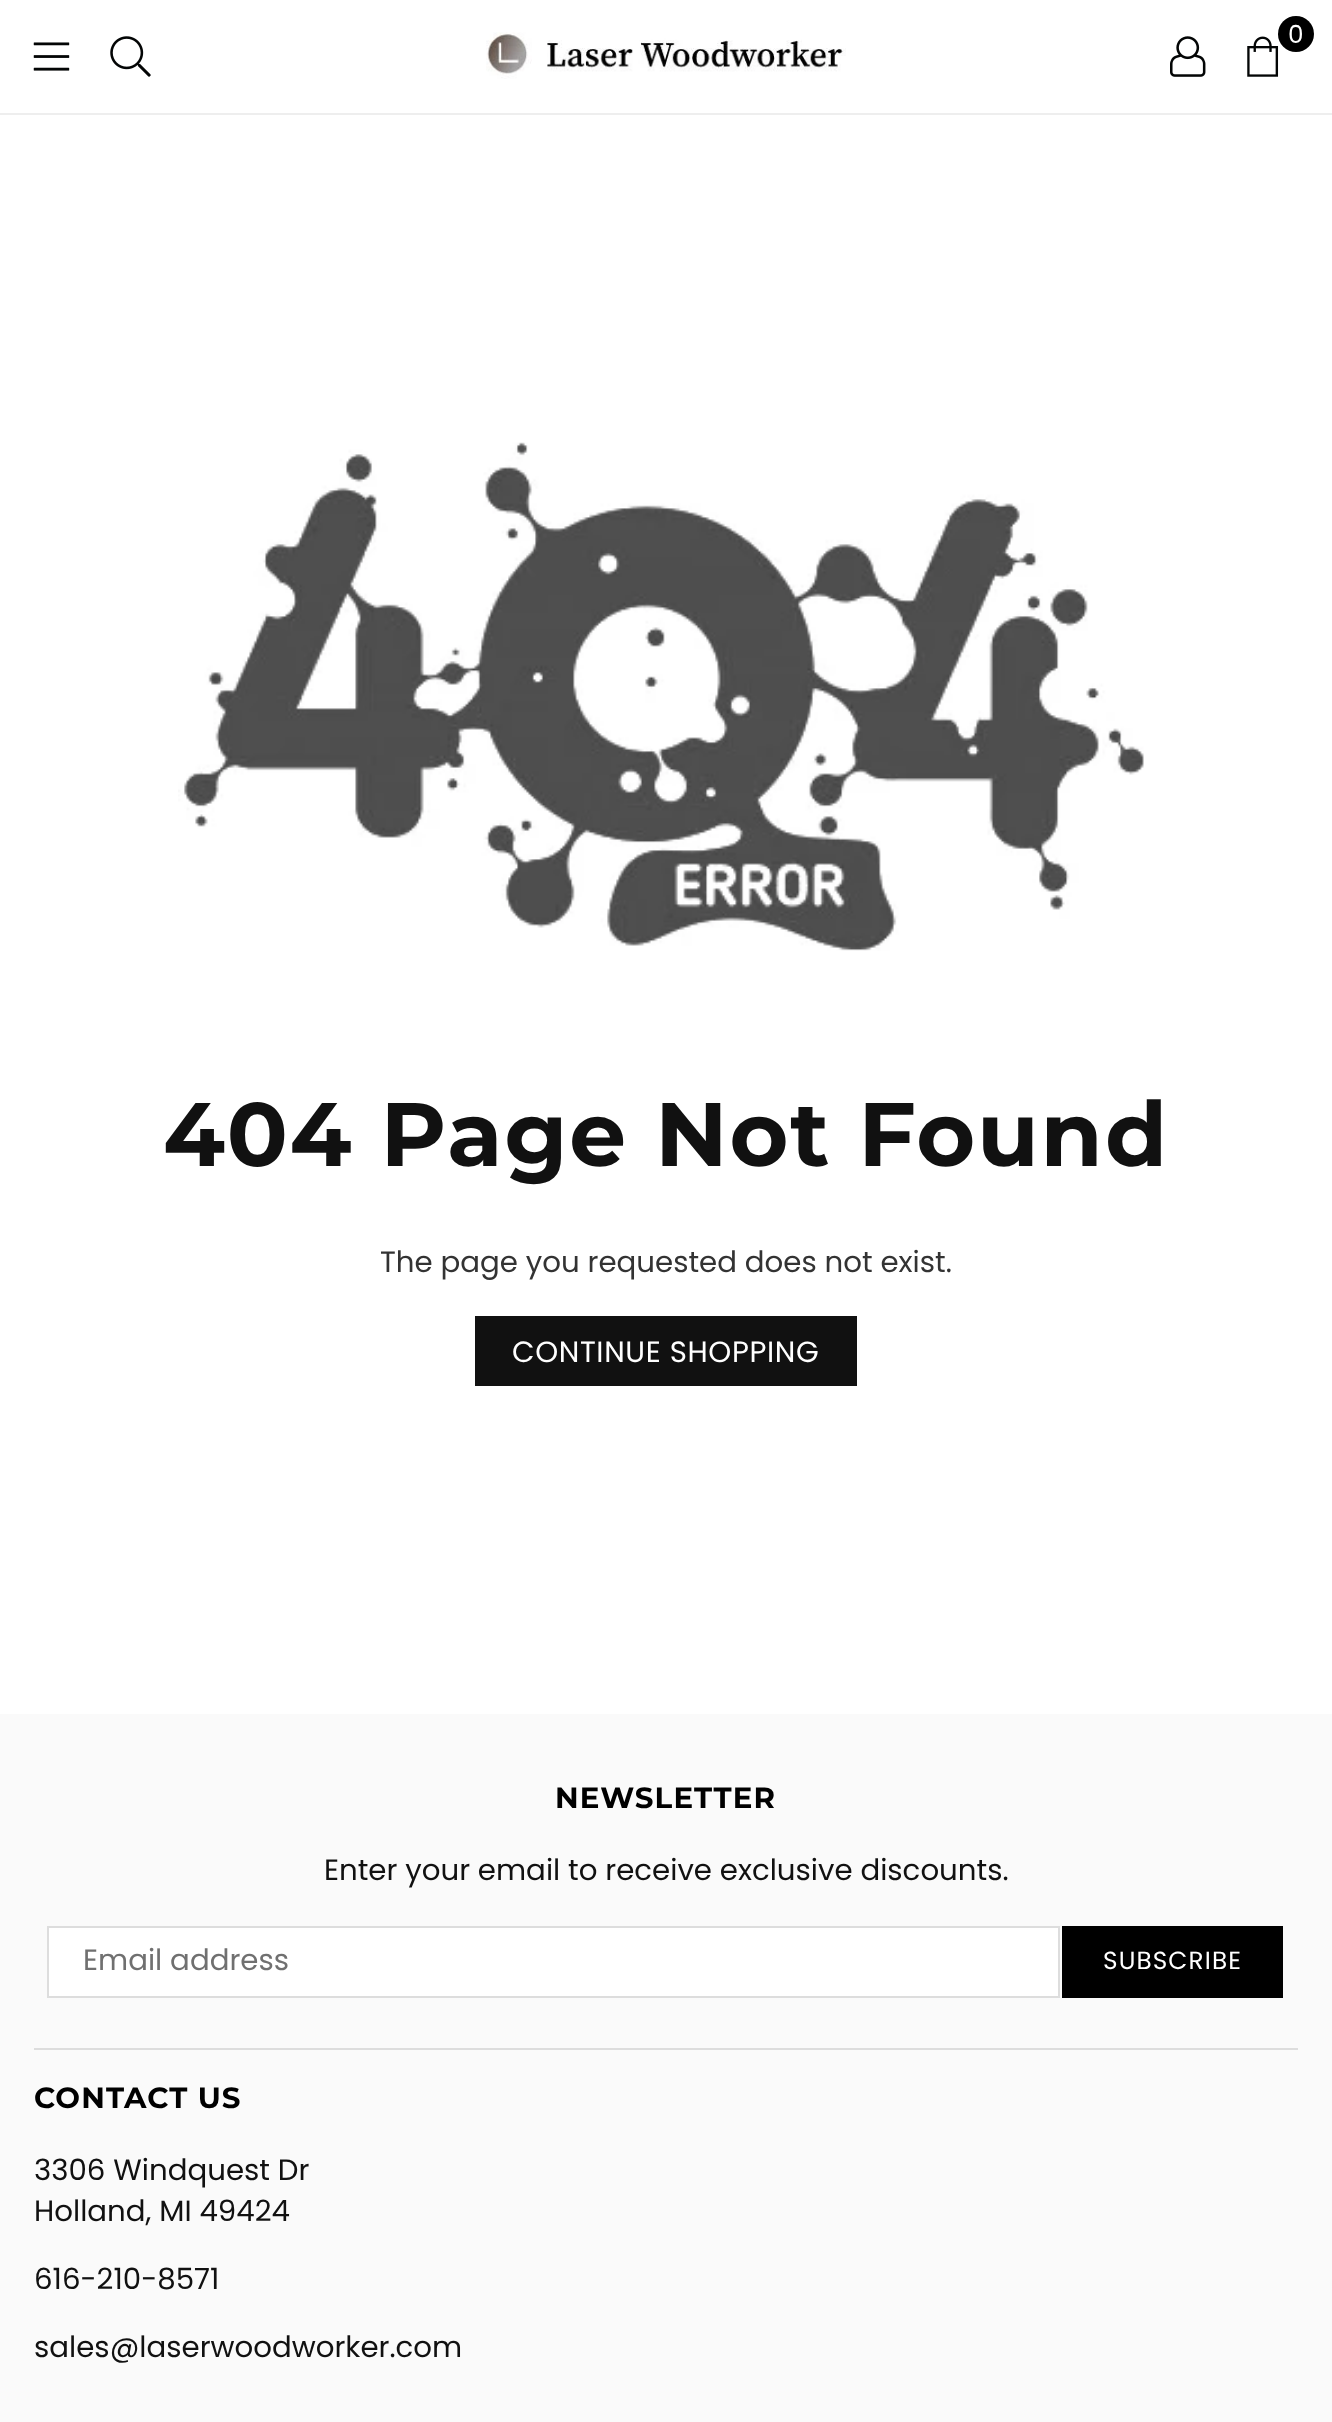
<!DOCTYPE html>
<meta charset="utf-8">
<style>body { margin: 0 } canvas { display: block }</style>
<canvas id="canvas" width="1332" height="2422"></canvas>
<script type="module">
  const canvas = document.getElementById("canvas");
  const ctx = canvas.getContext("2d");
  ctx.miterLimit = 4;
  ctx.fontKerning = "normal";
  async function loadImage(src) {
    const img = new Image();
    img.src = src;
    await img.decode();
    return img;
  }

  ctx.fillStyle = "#ffffff";
  ctx.fillRect(0, 0, 1332, 2422);
  ctx.fillStyle = "#eeeeee";
  ctx.fillRect(0, 113, 1332, 2);
  ctx.drawImage(await loadImage("img1.png"), 33, 42, 37, 29);
  ctx.drawImage(await loadImage("img2.png"), 110, 36, 41, 41);
  ctx.drawImage(await loadImage("img3.png"), 486, 32, 360, 47);
  ctx.drawImage(await loadImage("img4.png"), 1247, 36, 32, 41);
  ctx.fillStyle = "#000000";
  ctx.beginPath();
  ctx.arc(1296, 34, 18, 0, Math.PI * 2);
  ctx.fill();
  ctx.font = "24.75px Poppins";
  ctx.fillStyle = "#ffffff";
  ctx.fillText("0", 1288, 43);
  ctx.drawImage(await loadImage("img5.png"), 1170, 36, 36, 41);
  ctx.drawImage(await loadImage("img6.png"), 178, 442, 966, 509);
  ctx.letterSpacing = "1.75px";
  ctx.font = "bold 90px Montserrat";
  ctx.fillStyle = "#111111";
  ctx.fillText("404 Page Not Found", 163, 1166);
  ctx.letterSpacing = "0px";
  ctx.font = "29.25px Poppins";
  ctx.fillStyle = "#333333";
  ctx.fillText("The page you requested does not exist.", 380, 1272);
  ctx.fillStyle = "#111111";
  ctx.fillRect(475, 1316, 382, 70);
  ctx.letterSpacing = "0.6px";
  ctx.fillStyle = "#ffffff";
  ctx.fillText("CONTINUE SHOPPING", 512, 1362);
  ctx.fillStyle = "#fafafa";
  ctx.fillRect(0, 1714, 1332, 708);
  ctx.letterSpacing = "1.1px";
  ctx.font = "bold 29.25px Montserrat";
  ctx.fillStyle = "#000000";
  ctx.fillText("NEWSLETTER", 555, 1808);
  ctx.letterSpacing = "0px";
  ctx.font = "29.25px Poppins";
  ctx.fillStyle = "#111111";
  ctx.fillText("Enter your email to receive exclusive discounts.", 324, 1880);
  ctx.fillStyle = "#ffffff";
  ctx.beginPath();
  ctx.rect(48, 1927, 1011, 70);
  ctx.fill();
  ctx.strokeStyle = "#dddddd";
  ctx.lineWidth = 2;
  ctx.stroke();
  ctx.fillStyle = "#707070";
  ctx.fillText("Email address", 83, 1970);
  ctx.fillStyle = "#000000";
  ctx.fillRect(1062, 1926, 221, 72);
  ctx.letterSpacing = "1.1px";
  ctx.font = "24.75px Poppins";
  ctx.fillStyle = "#ffffff";
  ctx.fillText("SUBSCRIBE", 1103, 1969);
  ctx.fillStyle = "#dddddd";
  ctx.fillRect(34, 2048, 1264, 2);
  ctx.font = "bold 29.25px Montserrat";
  ctx.fillStyle = "#000000";
  ctx.fillText("CONTACT US", 34, 2108);
  ctx.letterSpacing = "0px";
  ctx.font = "29.25px Poppins";
  ctx.fillStyle = "#111111";
  ctx.fillText("3306 Windquest Dr", 34, 2180);
  ctx.fillText("Holland, MI 49424", 34, 2221);
  ctx.fillText("616-210-8571", 34, 2289);
  ctx.fillText("sales@laserwoodworker.com", 34, 2357);
</script>
